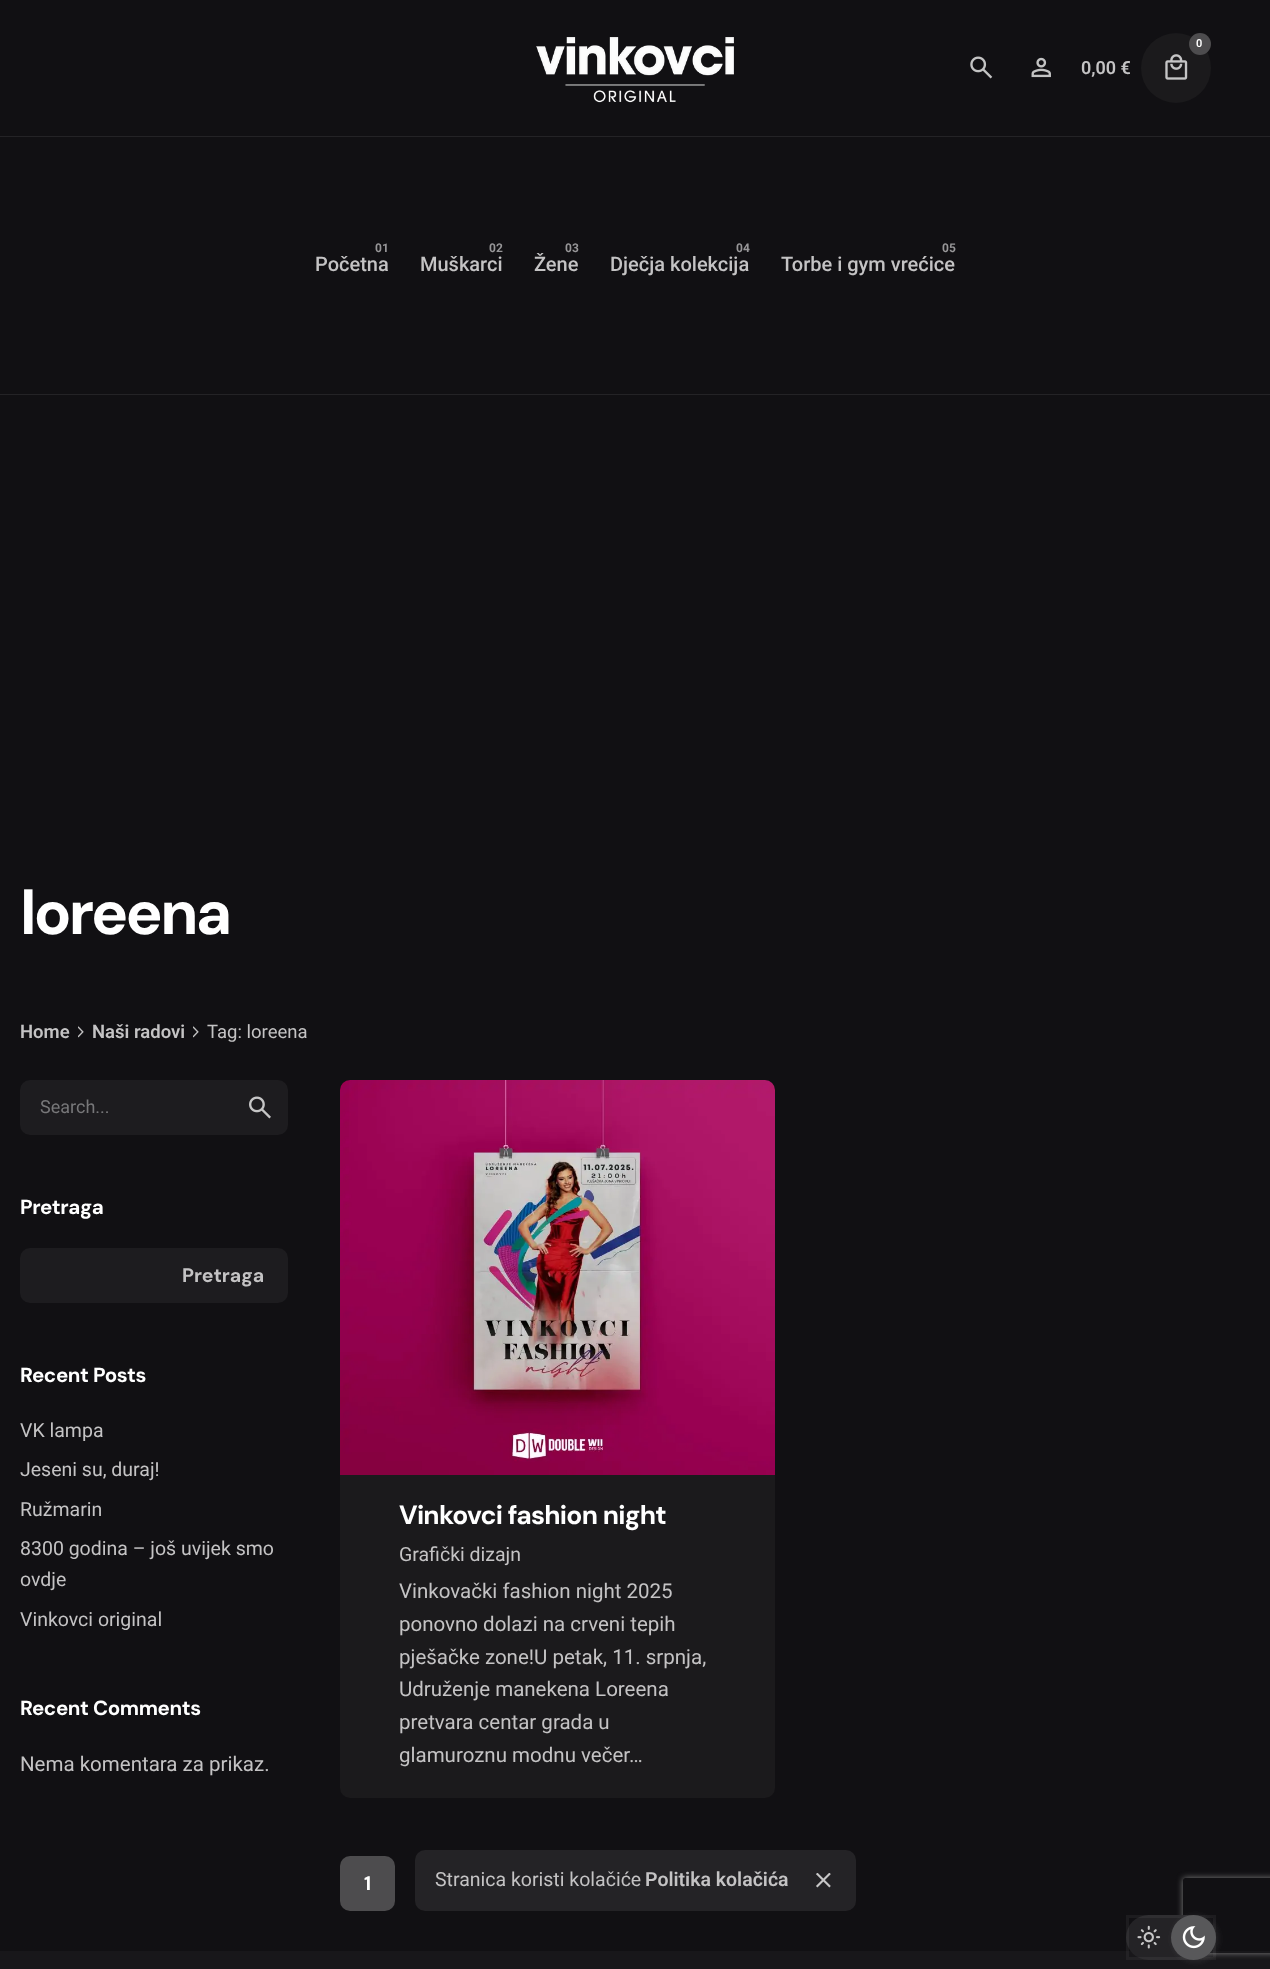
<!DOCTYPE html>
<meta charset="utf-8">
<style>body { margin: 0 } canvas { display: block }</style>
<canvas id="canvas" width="1270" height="1969"></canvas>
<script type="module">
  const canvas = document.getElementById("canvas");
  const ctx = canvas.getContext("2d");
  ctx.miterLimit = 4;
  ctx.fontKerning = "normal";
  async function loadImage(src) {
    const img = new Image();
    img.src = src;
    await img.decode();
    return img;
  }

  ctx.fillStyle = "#111013";
  ctx.fillRect(0, 0, 1270, 1969);
  ctx.fillStyle = "#242326";
  ctx.fillRect(0, 394, 1270, 1);
  ctx.drawImage(await loadImage("img1.png"), 536, 37, 198, 66);
  ctx.drawImage(await loadImage("img2.png"), 970, 56, 23, 23);
  ctx.drawImage(await loadImage("img3.png"), 1031, 57, 20, 21);
  ctx.fillStyle = "#1b1a1c";
  ctx.beginPath();
  ctx.arc(1176, 68, 35, 0, Math.PI * 2);
  ctx.fill();
  ctx.drawImage(await loadImage("img4.png"), 1165, 54, 23, 26);
  ctx.fillStyle = "#4d4c4e";
  ctx.beginPath();
  ctx.arc(1200, 44, 11, 0, Math.PI * 2);
  ctx.fill();
  ctx.font = "600 11px Roboto";
  ctx.fillStyle = "#ffffff";
  ctx.fillText("0", 1196, 47);
  ctx.font = "600 18px Roboto";
  ctx.fillStyle = "#c4c3c4";
  ctx.fillText("0,00 €", 1081, 74);
  ctx.fillStyle = "#242326";
  ctx.fillRect(0, 136, 1270, 1);
  ctx.font = "bold 12px Roboto";
  ctx.fillStyle = "#979698";
  ctx.fillText("01", 375, 252);
  ctx.font = "500 20px Roboto";
  ctx.fillStyle = "#c4c3c4";
  ctx.fillText("Početna", 315, 271);
  ctx.font = "bold 12px Roboto";
  ctx.fillStyle = "#979698";
  ctx.fillText("02", 489, 252);
  ctx.font = "500 20px Roboto";
  ctx.fillStyle = "#c4c3c4";
  ctx.fillText("Muškarci", 420, 271);
  ctx.font = "bold 12px Roboto";
  ctx.fillStyle = "#979698";
  ctx.fillText("03", 565, 252);
  ctx.font = "500 20px Roboto";
  ctx.fillStyle = "#c4c3c4";
  ctx.fillText("Žene", 534, 271);
  ctx.font = "bold 12px Roboto";
  ctx.fillStyle = "#979698";
  ctx.fillText("04", 736, 252);
  ctx.font = "500 20px Roboto";
  ctx.fillStyle = "#c4c3c4";
  ctx.fillText("Dječja kolekcija", 610, 271);
  ctx.font = "bold 12px Roboto";
  ctx.fillStyle = "#979698";
  ctx.fillText("05", 942, 252);
  ctx.font = "500 20px Roboto";
  ctx.fillStyle = "#c4c3c4";
  ctx.fillText("Torbe i gym vrećice", 781, 271);
  ctx.letterSpacing = "-2.75px";
  ctx.font = "bold 62px DM Sans";
  ctx.fillStyle = "#ffffff";
  ctx.fillText("loreena", 20, 934);
  ctx.letterSpacing = "0px";
  ctx.font = "600 18.5px Roboto";
  ctx.fillStyle = "#c4c3c4";
  ctx.fillText("Home", 20, 1038);
  ctx.drawImage(await loadImage("img5.png"), 78, 1026, 6, 12);
  ctx.fillText("Naši radovi", 92, 1038);
  ctx.drawImage(await loadImage("img5.png"), 193, 1026, 6, 12);
  ctx.font = "18.5px Roboto";
  ctx.fillText("Tag: loreena", 207, 1038);
  ctx.fillStyle = "#1d1c1f";
  ctx.beginPath();
  ctx.roundRect(20, 1080, 268, 55, 10);
  ctx.fill();
  ctx.font = "18px Roboto";
  ctx.fillStyle = "#777779";
  ctx.fillText("Search...", 40, 1113);
  ctx.drawImage(await loadImage("img6.png"), 249, 1096, 22, 23);
  ctx.letterSpacing = "-0.4px";
  ctx.font = "bold 20.5px DM Sans";
  ctx.fillStyle = "#ffffff";
  ctx.fillText("Pretraga", 20, 1214);
  ctx.fillStyle = "#1d1c1f";
  ctx.beginPath();
  ctx.roundRect(20, 1248, 268, 55, 10);
  ctx.fill();
  ctx.letterSpacing = "0px";
  ctx.font = "bold 19.5px DM Sans";
  ctx.fillStyle = "#c4c3c4";
  ctx.fillText("Pretraga", 182, 1282);
  ctx.letterSpacing = "-0.4px";
  ctx.font = "bold 20.5px DM Sans";
  ctx.fillStyle = "#ffffff";
  ctx.fillText("Recent Posts", 20, 1382);
  ctx.letterSpacing = "0px";
  ctx.font = "19.5px Roboto";
  ctx.fillStyle = "#c4c3c4";
  ctx.fillText("VK lampa", 20, 1437);
  ctx.fillText("Jeseni su, duraj!", 20, 1476);
  ctx.fillText("Ružmarin", 20, 1516);
  ctx.fillText("8300 godina – još uvijek smo", 20, 1555);
  ctx.fillText("ovdje", 20, 1586);
  ctx.fillText("Vinkovci original", 20, 1626);
  ctx.letterSpacing = "-0.4px";
  ctx.font = "bold 20.5px DM Sans";
  ctx.fillStyle = "#ffffff";
  ctx.fillText("Recent Comments", 20, 1715);
  ctx.letterSpacing = "0px";
  ctx.font = "20.5px Roboto";
  ctx.fillStyle = "#c4c3c4";
  ctx.fillText("Nema komentara za prikaz.", 20, 1771);
  ctx.drawImage(await loadImage("img7.png"), 340, 1080, 435, 395);
  ctx.fillStyle = "#1b1a1c";
  ctx.beginPath();
  ctx.roundRect(340, 1475, 435, 323, [0, 0, 10, 10]);
  ctx.fill();
  ctx.letterSpacing = "-0.75px";
  ctx.font = "bold 26.4px DM Sans";
  ctx.fillStyle = "#ffffff";
  ctx.fillText("Vinkovci fashion night", 399, 1524);
  ctx.letterSpacing = "0px";
  ctx.font = "19.5px Roboto";
  ctx.fillStyle = "#c4c3c4";
  ctx.fillText("Grafički dizajn", 399, 1561);
  ctx.font = "20.5px Roboto";
  ctx.fillText("Vinkovački fashion night 2025", 399, 1598);
  ctx.fillText("ponovno dolazi na crveni tepih", 399, 1631);
  ctx.fillText("pješačke zone!U petak, 11. srpnja,", 399, 1664);
  ctx.fillText("Udruženje manekena Loreena", 399, 1696);
  ctx.fillText("pretvara centar grada u", 399, 1729);
  ctx.fillText("glamuroznu modnu večer…", 399, 1762);
  ctx.fillStyle = "#4d4c4e";
  ctx.beginPath();
  ctx.roundRect(340, 1856, 55, 55, 10);
  ctx.fill();
  ctx.font = "bold 19.5px DM Sans";
  ctx.fillStyle = "#ffffff";
  ctx.fillText("1", 364, 1890);
  ctx.fillStyle = "#18171a";
  ctx.fillRect(0, 1951, 1270, 18);
  ctx.save();
  ctx.beginPath();
  ctx.moveTo(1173, 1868);
  ctx.lineTo(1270, 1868);
  ctx.lineTo(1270, 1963);
  ctx.lineTo(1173, 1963);
  ctx.closePath();
  ctx.moveTo(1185.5, 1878);
  ctx.lineTo(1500.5, 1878);
  ctx.bezierCurveTo(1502, 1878, 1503, 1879, 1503, 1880.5);
  ctx.lineTo(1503, 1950.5);
  ctx.bezierCurveTo(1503, 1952, 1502, 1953, 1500.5, 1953);
  ctx.lineTo(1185.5, 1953);
  ctx.bezierCurveTo(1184, 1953, 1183, 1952, 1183, 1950.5);
  ctx.lineTo(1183, 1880.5);
  ctx.bezierCurveTo(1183, 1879, 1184, 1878, 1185.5, 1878);
  ctx.closePath();
  ctx.clip("evenodd");
  ctx.fillStyle = "#808080";
  ctx.filter = "blur(3px)";
  ctx.beginPath();
  ctx.roundRect(1183, 1878, 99, 75, 2.5);
  ctx.fill();
  ctx.filter = "none";
  ctx.restore();
  ctx.fillStyle = "#242326";
  ctx.beginPath();
  ctx.roundRect(1126, 1915, 90, 45, 22.5);
  ctx.fill();
  ctx.strokeStyle = "rgba(255, 255, 255, 0.05)";
  ctx.lineWidth = 3;
  ctx.strokeRect(1127.5, 1916.5, 87, 42);
  ctx.drawImage(await loadImage("img8.png"), 1137, 1925, 24, 24);
  ctx.fillStyle = "rgba(255, 255, 255, 0.05)";
  ctx.filter = "blur(4px)";
  ctx.beginPath();
  ctx.roundRect(1173, 1916, 45, 45, 22.5);
  ctx.fill();
  ctx.filter = "none";
  ctx.filter = "blur(4px)";
  ctx.beginPath();
  ctx.roundRect(1173, 1916, 45, 45, 22.5);
  ctx.fill();
  ctx.filter = "none";
  ctx.fillStyle = "#58585a";
  ctx.beginPath();
  ctx.arc(1193.5, 1937.5, 22.5, 0, Math.PI * 2);
  ctx.fill();
  ctx.drawImage(await loadImage("img9.png"), 1182, 1926, 23, 23);
  ctx.fillStyle = "#242326";
  ctx.beginPath();
  ctx.roundRect(415, 1850, 441, 61, 10);
  ctx.fill();
  ctx.font = "19.5px Roboto";
  ctx.fillStyle = "#c4c3c4";
  ctx.fillText("Stranica koristi kolačiće", 435, 1886);
  ctx.font = "600 19.5px Roboto";
  ctx.fillText("Politika kolačića", 645, 1886);
  ctx.drawImage(await loadImage("img10.png"), 816, 1873, 15, 15);
</script>
